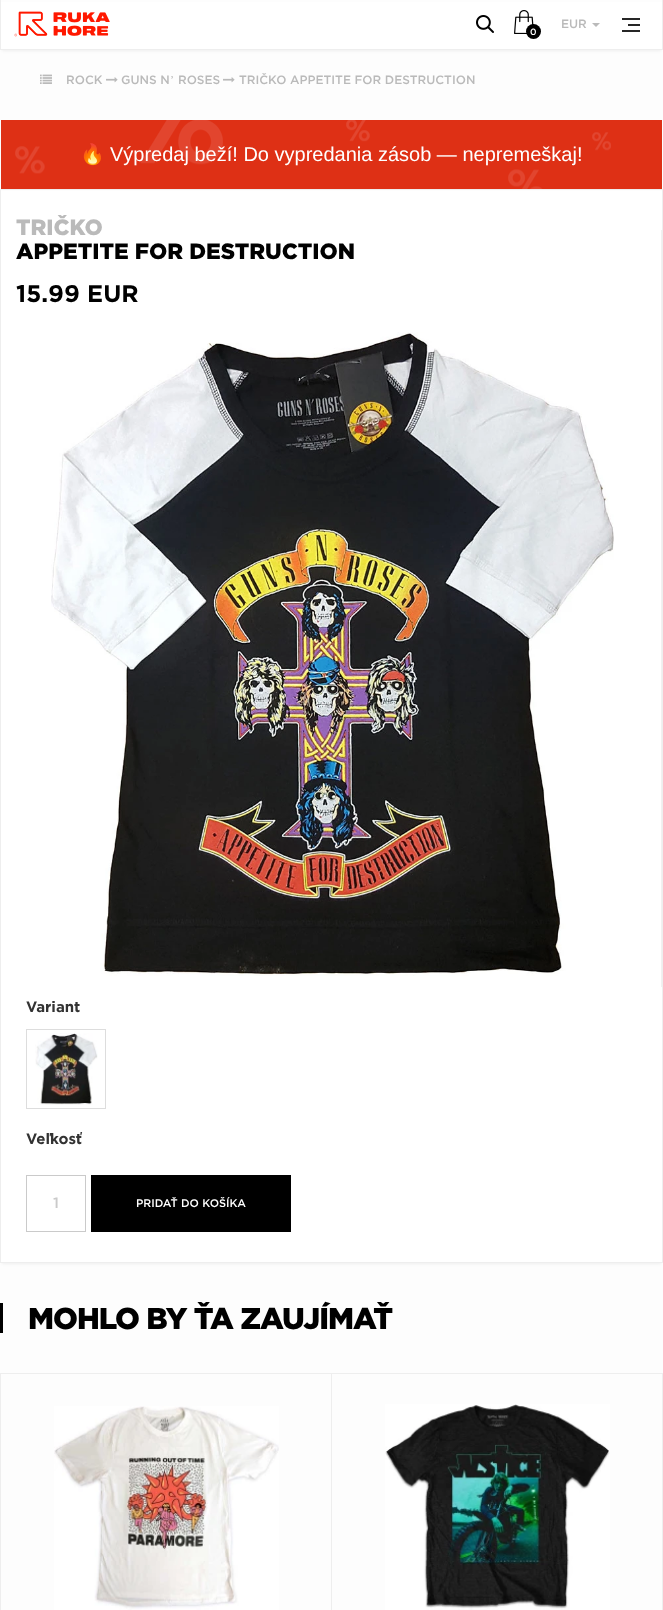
<!DOCTYPE html>
<meta charset="utf-8">
<style>body { margin: 0 } canvas { display: block }</style>
<canvas id="canvas" width="663" height="1610"></canvas>
<script type="module">
  const canvas = document.getElementById("canvas");
  const ctx = canvas.getContext("2d");
  ctx.miterLimit = 4;
  ctx.fontKerning = "normal";
  async function loadImage(src) {
    const img = new Image();
    img.src = src;
    await img.decode();
    return img;
  }

  ctx.fillStyle = "#fdfdfd";
  ctx.fillRect(0, 0, 663, 1610);
  ctx.fillStyle = "rgba(0, 0, 0, 0.06)";
  ctx.filter = "blur(1.5px)";
  ctx.beginPath();
  ctx.rect(2, 5, 659, 46);
  ctx.fill();
  ctx.filter = "none";
  ctx.fillStyle = "#ffffff";
  ctx.fillRect(1, 2, 661, 47);
  ctx.fillStyle = "#eeeeee";
  ctx.fillRect(662, 0, 1, 50);
  ctx.fillRect(0, 49, 663, 1);
  ctx.fillRect(0, 0, 1, 50);
  ctx.drawImage(await loadImage("img1.png"), 14, 11, 96, 26);
  ctx.drawImage(await loadImage("img2.png"), 476, 15, 18, 18);
  ctx.font = "500 12px Gotham";
  ctx.fillStyle = "#bababa";
  ctx.fillText("EUR", 561, 28);
  ctx.beginPath();
  ctx.moveTo(592, 23);
  ctx.lineTo(600, 23);
  ctx.lineTo(596, 27);
  ctx.closePath();
  ctx.fill();
  ctx.fillStyle = "#262626";
  ctx.fillRect(622, 30, 18, 2);
  ctx.fillRect(622, 18, 18, 2);
  ctx.fillRect(628, 24, 12, 2);
  ctx.drawImage(await loadImage("img3.png"), 514, 10, 20, 24);
  ctx.fillStyle = "#000000";
  ctx.beginPath();
  ctx.arc(533.5, 31.5, 7.5, 0, Math.PI * 2);
  ctx.fill();
  ctx.font = "500 9px Gotham";
  ctx.fillStyle = "#ffffff";
  ctx.fillText("0", 530, 35);
  ctx.drawImage(await loadImage("img4.png"), 40, 74, 12, 10);
  ctx.font = "500 12px Gotham";
  ctx.fillStyle = "#bababa";
  ctx.fillText("ROCK", 66, 84);
  ctx.drawImage(await loadImage("img5.png"), 106, 77, 12, 6);
  ctx.fillText("GUNS N", 121, 84);
  ctx.font = "12px Liberation Serif";
  ctx.fillText("’", 170, 84);
  ctx.font = "500 12px Gotham";
  ctx.fillText("ROSES", 178, 84);
  ctx.drawImage(await loadImage("img5.png"), 223, 77, 12, 6);
  ctx.fillText("TRIČKO APPETITE FOR DESTRUCTION", 239, 84);
  ctx.fillStyle = "rgba(0, 0, 0, 0.06)";
  ctx.filter = "blur(1.5px)";
  ctx.beginPath();
  ctx.rect(2, 194, 659, 1070);
  ctx.fill();
  ctx.filter = "none";
  ctx.drawImage(await loadImage("img6.png"), 1, 120, 661, 69);
  ctx.font = "20px Noto Color Emoji";
  ctx.fillStyle = "#ffffff";
  ctx.fillText("🔥", 80, 161);
  ctx.font = "20px Liberation Sans";
  ctx.fillText("Výpredaj beží! Do vypredania zásob — nepremeškaj!", 110, 161);
  ctx.fillRect(1, 191, 661, 1071);
  ctx.strokeStyle = "#eeeeee";
  ctx.strokeRect(0.5, 189.5, 662, 1073);
  ctx.fillStyle = "#f1f1f1";
  ctx.fillRect(661, 230, 1, 757);
  ctx.font = "900 22px Gotham";
  ctx.fillStyle = "#bababa";
  ctx.fillText("TRIČKO", 16, 235);
  ctx.fillStyle = "#000000";
  ctx.fillText("APPETITE FOR DESTRUCTION", 16, 259);
  ctx.font = "bold 24px Gotham";
  ctx.fillText("15.99 EUR", 16, 302);
  ctx.drawImage(await loadImage("img7.png"), 51, 332, 563, 644);
  ctx.font = "bold 15px Gotham";
  ctx.fillStyle = "#333333";
  ctx.fillText("Variant", 26, 1012);
  ctx.strokeStyle = "#dddddd";
  ctx.strokeRect(26.5, 1029.5, 79, 79);
  ctx.drawImage(await loadImage("img8.png"), 35, 1033, 63, 72);
  ctx.fillText("Veľkosť", 26, 1144);
  ctx.strokeStyle = "#cacaca";
  ctx.strokeRect(26.5, 1175.5, 59, 56);
  ctx.font = "500 15px Gotham";
  ctx.fillStyle = "#cacaca";
  ctx.fillText("1", 53, 1208);
  ctx.fillStyle = "#000000";
  ctx.fillRect(91, 1175, 200, 57);
  ctx.font = "500 11px Gotham";
  ctx.fillStyle = "#ffffff";
  ctx.fillText("PRIDAŤ DO KOŠÍKA", 136, 1207);
  ctx.fillStyle = "#000000";
  ctx.fillRect(0, 1303, 3, 30);
  ctx.letterSpacing = "-1px";
  ctx.font = "900 30px Gotham";
  ctx.fillText("MOHLO BY ŤA ZAUJÍMAŤ", 28, 1329);
  ctx.fillStyle = "#eeeeee";
  ctx.fillRect(0, 1373, 663, 1);
  ctx.fillRect(0, 1373, 1, 237);
  ctx.fillRect(331, 1374, 1, 236);
  ctx.drawImage(await loadImage("img9.png"), 54, 1406, 225, 204);
  ctx.fillRect(662, 1374, 1, 236);
  ctx.drawImage(await loadImage("img10.png"), 385, 1404, 225, 206);
</script>
